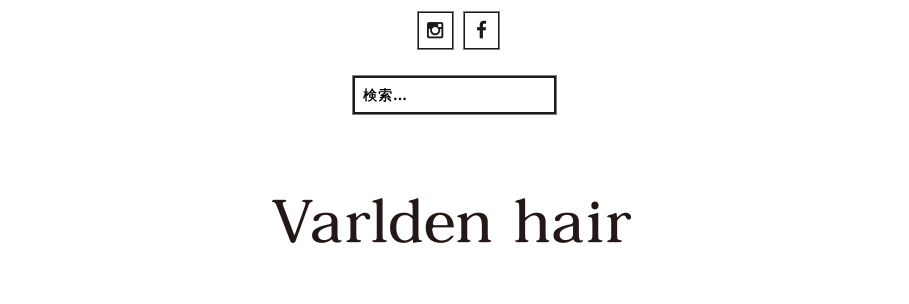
<!DOCTYPE html>
<meta charset="utf-8">
<style>body { margin: 0 } canvas { display: block }</style>
<canvas id="canvas" width="909" height="304"></canvas>
<script type="module">
  const canvas = document.getElementById("canvas");
  const ctx = canvas.getContext("2d");
  ctx.miterLimit = 4;
  ctx.fontKerning = "normal";
  async function loadImage(src) {
    const img = new Image();
    img.src = src;
    await img.decode();
    return img;
  }

  ctx.fillStyle = "#ffffff";
  ctx.fillRect(0, 0, 909, 304);
  ctx.strokeStyle = "#1a1a1a";
  ctx.strokeRect(418.5, 12.5, 34, 36);
  ctx.drawImage(await loadImage("img1.png"), 427, 22, 17, 17);
  ctx.strokeStyle = "#808080";
  ctx.strokeRect(417.5, 11.5, 36, 38);
  ctx.strokeStyle = "#1a1a1a";
  ctx.strokeRect(464.5, 12.5, 34, 36);
  ctx.drawImage(await loadImage("img2.png"), 477, 20, 10, 19);
  ctx.strokeStyle = "#808080";
  ctx.strokeRect(463.5, 11.5, 36, 38);
  ctx.strokeStyle = "#1a1a1a";
  ctx.lineWidth = 2;
  ctx.strokeRect(354, 77, 201, 36);
  ctx.strokeStyle = "#808080";
  ctx.lineWidth = 1;
  ctx.strokeRect(352.5, 75.5, 204, 39);
  ctx.letterSpacing = "1px";
  ctx.font = "bold 14px WenQuanYi Zen Hei";
  ctx.fillStyle = "#000000";
  ctx.fillText("検索", 363, 100);
  ctx.font = "bold 14px Source Sans Pro";
  ctx.fillText("…", 393, 100);
  ctx.drawImage(await loadImage("img3.png"), 272, 198, 359, 45);
</script>
